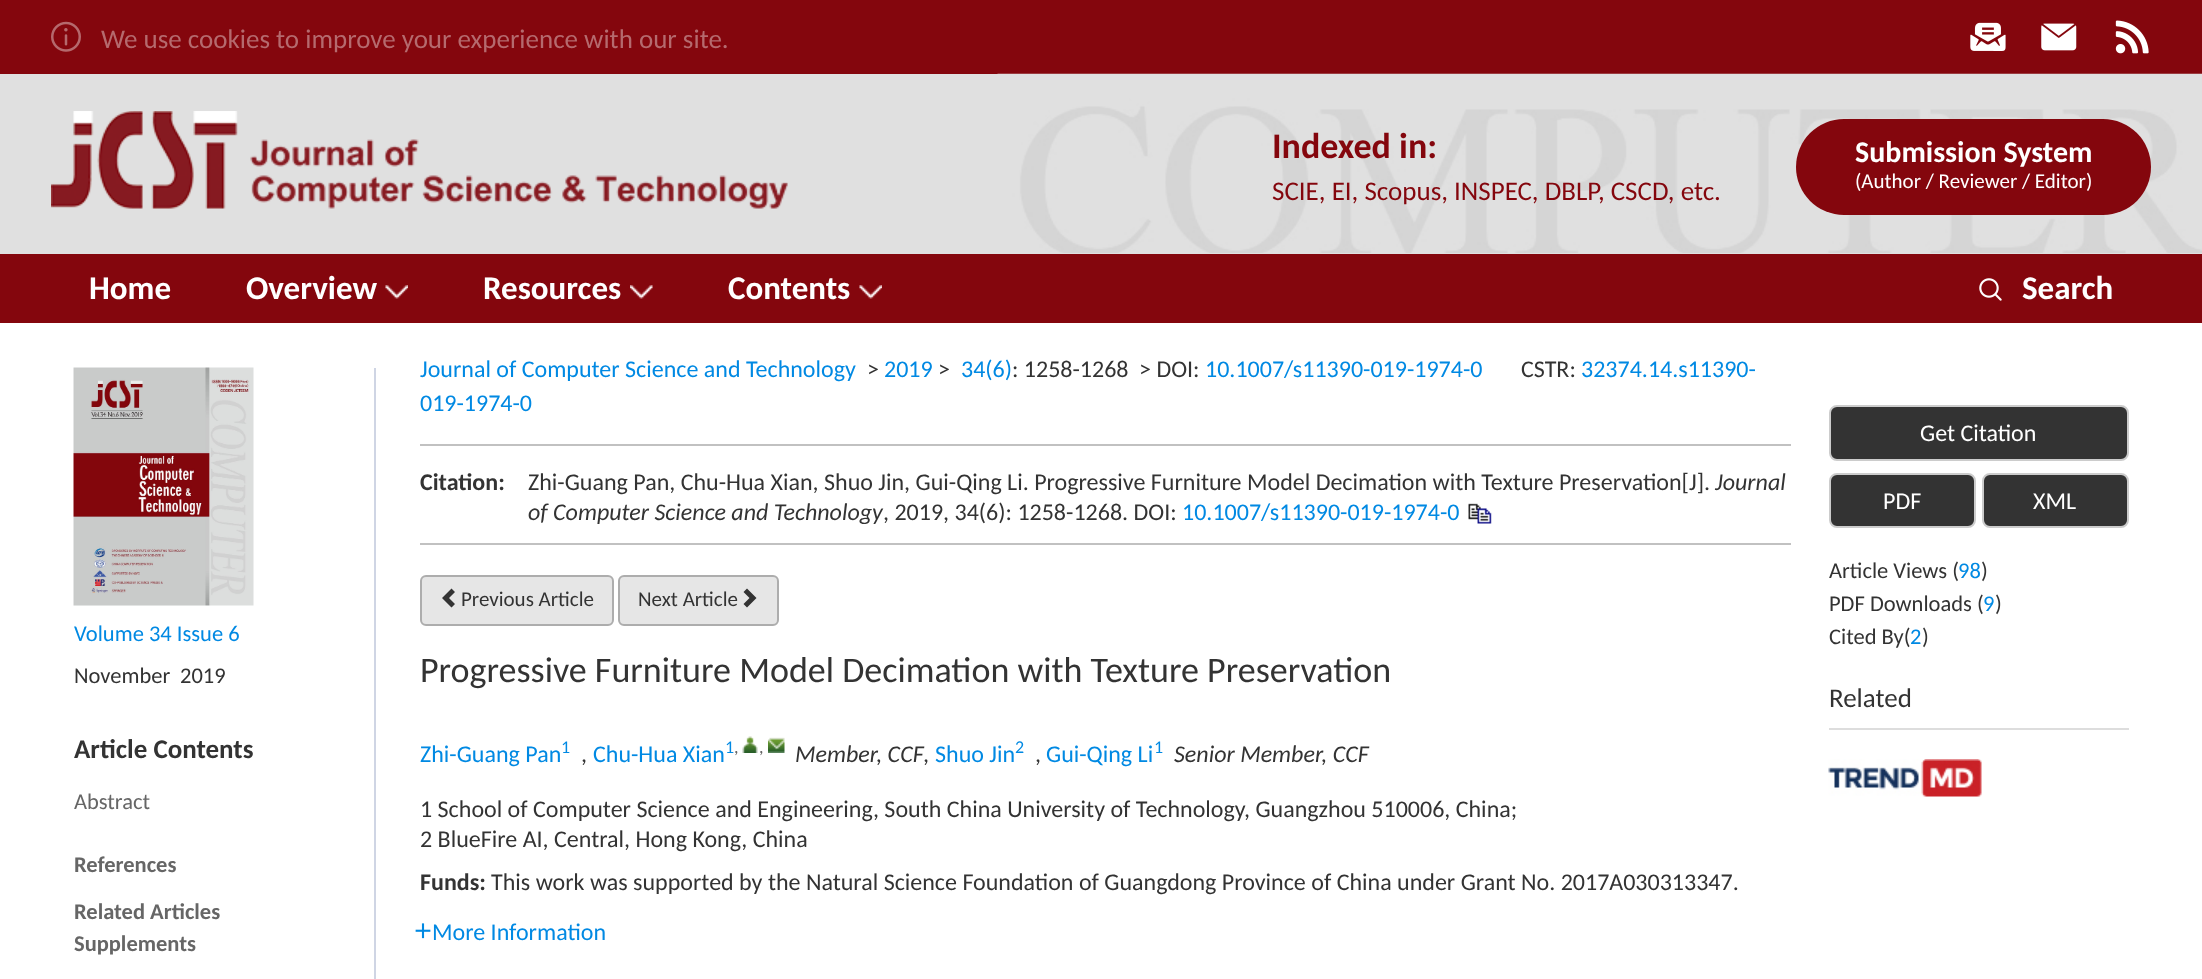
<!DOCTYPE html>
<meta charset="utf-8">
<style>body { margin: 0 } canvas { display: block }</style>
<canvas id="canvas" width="2202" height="979"></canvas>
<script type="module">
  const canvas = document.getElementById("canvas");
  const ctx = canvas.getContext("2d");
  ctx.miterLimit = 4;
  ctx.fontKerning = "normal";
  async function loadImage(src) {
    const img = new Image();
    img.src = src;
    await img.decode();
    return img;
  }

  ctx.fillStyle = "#ffffff";
  ctx.fillRect(0, 0, 2202, 979);
  ctx.fillStyle = "#84060d";
  ctx.fillRect(0, 0, 2202, 74);
  ctx.drawImage(await loadImage("img1.png"), 51, 21, 30, 31);
  ctx.font = "27px Carlito";
  ctx.fillStyle = "#b56a6e";
  ctx.fillText("We use cookies to improve your experience with our site.", 101, 48);
  ctx.drawImage(await loadImage("img2.png"), 1970, 22, 36, 29);
  ctx.drawImage(await loadImage("img3.png"), 2041, 23, 36, 28);
  ctx.drawImage(await loadImage("img4.png"), 2115, 20, 34, 34);
  ctx.fillStyle = "#e0e0e0";
  ctx.fillRect(0, 74, 2202, 180);
  ctx.drawImage(await loadImage("img5.png"), 997, 73, 1205, 180);
  ctx.drawImage(await loadImage("img6.png"), 51, 111, 737, 98);
  ctx.font = "bold 36px Carlito";
  ctx.fillStyle = "#84060d";
  ctx.fillText("Indexed in:", 1272, 158);
  ctx.font = "27px Carlito";
  ctx.fillText("SCIE, EI, Scopus, INSPEC, DBLP, CSCD, etc.", 1272, 200);
  ctx.beginPath();
  ctx.roundRect(1796, 119, 355, 96, 48);
  ctx.fill();
  ctx.font = "bold 30px Carlito";
  ctx.fillStyle = "#ffffff";
  ctx.fillText("Submission System", 1855, 162);
  ctx.font = "21px Carlito";
  ctx.fillText("(Author / Reviewer / Editor)", 1855, 188);
  ctx.fillStyle = "#84060d";
  ctx.fillRect(0, 254, 2202, 69);
  ctx.font = "bold 33px Carlito";
  ctx.fillStyle = "#ffffff";
  ctx.fillText("Home", 89, 299);
  ctx.fillText("Overview", 246, 299);
  ctx.drawImage(await loadImage("img7.png"), 385, 285, 23, 14);
  ctx.fillText("Resources", 483, 299);
  ctx.drawImage(await loadImage("img8.png"), 630, 285, 23, 14);
  ctx.fillText("Contents", 728, 299);
  ctx.drawImage(await loadImage("img9.png"), 859, 285, 23, 14);
  ctx.drawImage(await loadImage("img10.png"), 1979, 278, 23, 23);
  ctx.fillText("Search", 2022, 299);
  ctx.fillStyle = "#cfd5e4";
  ctx.fillRect(374, 368, 2, 611);
  ctx.fillStyle = "#c1c1c1";
  ctx.fillRect(420, 444, 1371, 2);
  ctx.font = "24px Carlito";
  ctx.fillStyle = "#0089e3";
  ctx.fillText("Journal of Computer Science and Technology", 420, 377);
  ctx.fillStyle = "#333333";
  ctx.fillText(">", 867, 377);
  ctx.fillStyle = "#0089e3";
  ctx.fillText("2019", 884, 377);
  ctx.fillStyle = "#333333";
  ctx.fillText(">", 938, 377);
  ctx.fillStyle = "#0089e3";
  ctx.fillText("34(6)", 961, 377);
  ctx.fillStyle = "#333333";
  ctx.fillText(": 1258-1268", 1012, 377);
  ctx.fillText("> DOI:", 1139, 377);
  ctx.fillStyle = "#0089e3";
  ctx.fillText("10.1007/s11390-019-1974-0", 1205, 377);
  ctx.fillStyle = "#333333";
  ctx.fillText("CSTR:", 1521, 377);
  ctx.fillStyle = "#0089e3";
  ctx.fillText("32374.14.s11390-", 1581, 377);
  ctx.fillText("019-1974-0", 420, 411);
  ctx.fillStyle = "#c1c1c1";
  ctx.fillRect(420, 543, 1371, 2);
  ctx.font = "bold 24px Carlito";
  ctx.fillStyle = "#333333";
  ctx.fillText("Citation:", 420, 490);
  ctx.font = "24px Carlito";
  ctx.fillText("Zhi-Guang Pan, Chu-Hua Xian, Shuo Jin, Gui-Qing Li. Progressive Furniture Model Decimation with Texture Preservation[J].", 528, 490);
  ctx.font = "italic 24px Carlito";
  ctx.fillText("Journal", 1715, 490);
  ctx.fillText("of Computer Science and Technology", 528, 520);
  ctx.font = "24px Carlito";
  ctx.fillText(", 2019, 34(6): 1258-1268. DOI:", 883, 520);
  ctx.fillStyle = "#0089e3";
  ctx.fillText("10.1007/s11390-019-1974-0", 1182, 520);
  ctx.drawImage(await loadImage("img11.png"), 1468, 503, 24, 21);
  ctx.fillStyle = "#e6e6e6";
  ctx.beginPath();
  ctx.roundRect(421, 576, 192, 49, 5);
  ctx.fill();
  ctx.strokeStyle = "#adadad";
  ctx.lineWidth = 2;
  ctx.stroke();
  ctx.fillStyle = "#333333";
  ctx.beginPath();
  ctx.moveTo(455, 592);
  ctx.lineTo(449, 598);
  ctx.lineTo(455, 604);
  ctx.lineTo(451.5, 607.5);
  ctx.lineTo(442, 598);
  ctx.lineTo(451.5, 588.5);
  ctx.closePath();
  ctx.fill();
  ctx.font = "21px Carlito";
  ctx.fillText("Previous Article", 461, 606);
  ctx.fillStyle = "#e6e6e6";
  ctx.beginPath();
  ctx.roundRect(619, 576, 159, 49, 5);
  ctx.fill();
  ctx.stroke();
  ctx.fillStyle = "#333333";
  ctx.fillText("Next Article", 638, 606);
  ctx.beginPath();
  ctx.moveTo(756.5, 598);
  ctx.lineTo(747, 607.5);
  ctx.lineTo(743.5, 604);
  ctx.lineTo(749.5, 598);
  ctx.lineTo(743.5, 592);
  ctx.lineTo(747, 588.5);
  ctx.closePath();
  ctx.fill();
  ctx.font = "36px Carlito";
  ctx.fillText("Progressive Furniture Model Decimation with Texture Preservation", 420, 682);
  ctx.font = "24px Carlito";
  ctx.fillStyle = "#0089e3";
  ctx.fillText("Zhi-Guang Pan", 420, 762);
  ctx.font = "18px Carlito";
  ctx.fillText("1", 561, 753);
  ctx.font = "24px Carlito";
  ctx.fillStyle = "#333333";
  ctx.fillText(",", 581, 762);
  ctx.fillStyle = "#0089e3";
  ctx.fillText("Chu-Hua Xian", 593, 762);
  ctx.font = "18px Carlito";
  ctx.fillText("1", 725, 753);
  ctx.drawImage(await loadImage("img12.png"), 742, 736, 16, 17);
  ctx.drawImage(await loadImage("img13.png"), 768, 737, 17, 16);
  ctx.fillStyle = "#666666";
  ctx.fillText(",", 734, 753);
  ctx.fillText(",", 759, 753);
  ctx.font = "italic 24px Carlito";
  ctx.fillStyle = "#333333";
  ctx.fillText("Member, CCF", 795, 762);
  ctx.font = "24px Carlito";
  ctx.fillText(",", 923, 762);
  ctx.fillStyle = "#0089e3";
  ctx.fillText("Shuo Jin", 935, 762);
  ctx.font = "18px Carlito";
  ctx.fillText("2", 1015, 753);
  ctx.font = "24px Carlito";
  ctx.fillStyle = "#333333";
  ctx.fillText(",", 1035, 762);
  ctx.fillStyle = "#0089e3";
  ctx.fillText("Gui-Qing Li", 1046, 762);
  ctx.font = "18px Carlito";
  ctx.fillText("1", 1154, 753);
  ctx.font = "italic 24px Carlito";
  ctx.fillStyle = "#333333";
  ctx.fillText("Senior Member, CCF", 1174, 762);
  ctx.font = "24px Carlito";
  ctx.fillText("1 School of Computer Science and Engineering, South China University of Technology, Guangzhou 510006, China;", 420, 817);
  ctx.fillText("2 BlueFire AI, Central, Hong Kong, China", 420, 847);
  ctx.font = "bold 24px Carlito";
  ctx.fillText("Funds:", 420, 890);
  ctx.font = "24px Carlito";
  ctx.fillText("This work was supported by the Natural Science Foundation of Guangdong Province of China under Grant No. 2017A030313347.", 491, 890);
  ctx.drawImage(await loadImage("img14.png"), 415, 923, 16, 16);
  ctx.fillStyle = "#0089e3";
  ctx.fillText("More Information", 432, 940);
  ctx.fillStyle = "#333333";
  ctx.beginPath();
  ctx.roundRect(1830, 406, 298, 54, 7);
  ctx.fill();
  ctx.strokeStyle = "#cccccc";
  ctx.stroke();
  ctx.fillStyle = "#ffffff";
  ctx.fillText("Get Citation", 1920, 441);
  ctx.fillStyle = "#333333";
  ctx.beginPath();
  ctx.roundRect(1830, 474, 145, 53, 7);
  ctx.fill();
  ctx.stroke();
  ctx.fillStyle = "#ffffff";
  ctx.fillText("PDF", 1883, 509);
  ctx.fillStyle = "#333333";
  ctx.beginPath();
  ctx.roundRect(1983, 474, 145, 53, 7);
  ctx.fill();
  ctx.stroke();
  ctx.fillStyle = "#ffffff";
  ctx.fillText("XML", 2033, 509);
  ctx.font = "22.5px Carlito";
  ctx.fillStyle = "#333333";
  ctx.fillText("Article Views (", 1829, 578);
  ctx.fillStyle = "#0089e3";
  ctx.fillText("98", 1958, 578);
  ctx.fillStyle = "#333333";
  ctx.fillText(")", 1981, 578);
  ctx.fillText("PDF Downloads (", 1829, 611);
  ctx.fillStyle = "#0089e3";
  ctx.fillText("9", 1983, 611);
  ctx.fillStyle = "#333333";
  ctx.fillText(")", 1995, 611);
  ctx.fillText("Cited By(", 1829, 644);
  ctx.fillStyle = "#0089e3";
  ctx.fillText("2", 1910, 644);
  ctx.fillStyle = "#333333";
  ctx.fillText(")", 1922, 644);
  ctx.fillStyle = "#dddddd";
  ctx.fillRect(1829, 728, 300, 2);
  ctx.font = "27px Carlito";
  ctx.fillStyle = "#333333";
  ctx.fillText("Related", 1829, 707);
  ctx.drawImage(await loadImage("img15.png"), 1828, 759, 154, 38);
  ctx.drawImage(await loadImage("img16.png"), 73, 367, 181, 239);
  ctx.font = "22.5px Carlito";
  ctx.fillStyle = "#0089e3";
  ctx.fillText("Volume 34 Issue 6", 74, 641);
  ctx.fillStyle = "#333333";
  ctx.fillText("November", 74, 683);
  ctx.fillText("2019", 180, 683);
  ctx.font = "bold 27px Carlito";
  ctx.fillText("Article Contents", 74, 758);
  ctx.font = "22.5px Carlito";
  ctx.fillStyle = "#666666";
  ctx.fillText("Abstract", 74, 809);
  ctx.font = "bold 22.5px Carlito";
  ctx.fillText("References", 74, 872);
  ctx.fillText("Related Articles", 74, 919);
  ctx.fillText("Supplements", 74, 951);
</script>
